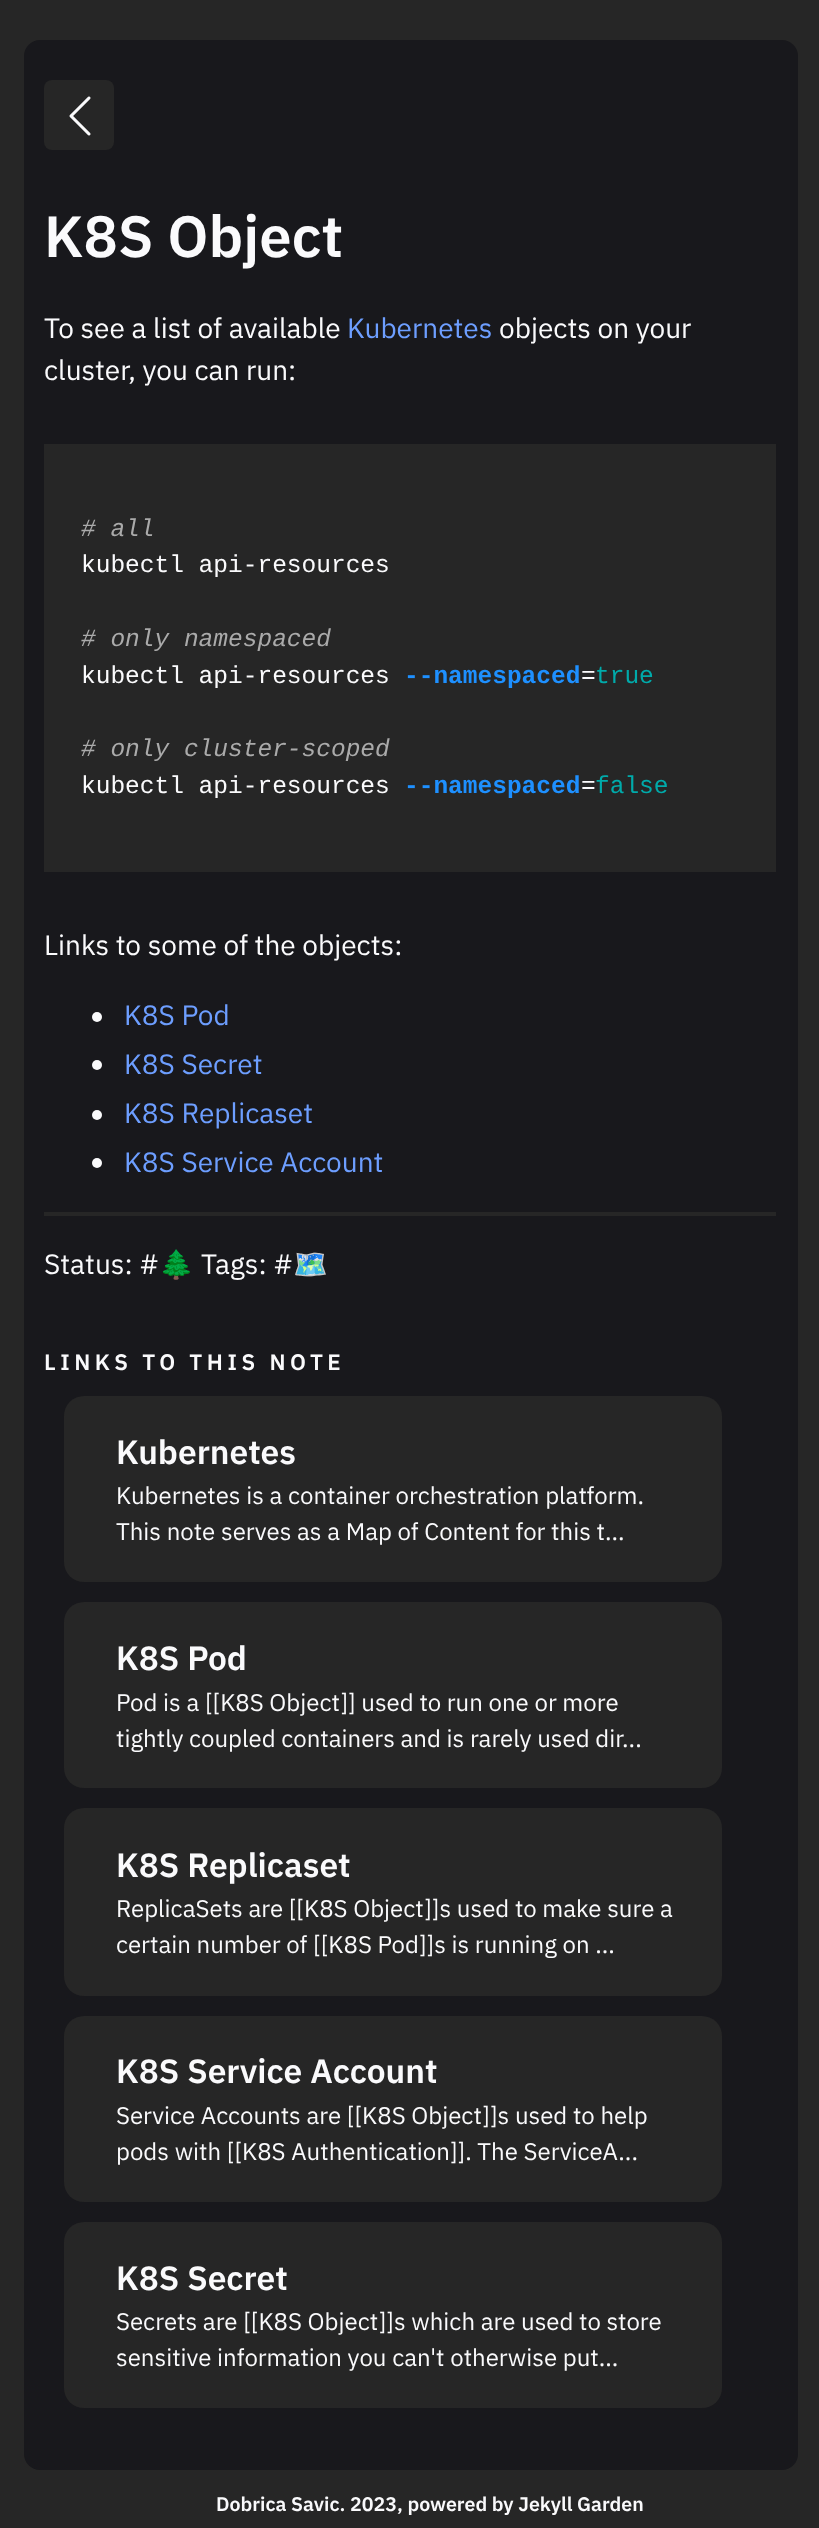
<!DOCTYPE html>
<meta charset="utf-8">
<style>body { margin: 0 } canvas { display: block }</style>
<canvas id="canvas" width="819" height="2528"></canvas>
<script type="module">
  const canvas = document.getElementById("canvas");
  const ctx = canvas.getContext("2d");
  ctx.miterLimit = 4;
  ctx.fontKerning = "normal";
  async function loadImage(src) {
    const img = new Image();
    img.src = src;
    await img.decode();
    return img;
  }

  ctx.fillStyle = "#262626";
  ctx.fillRect(0, 0, 819, 2528);
  ctx.fillStyle = "#18181c";
  ctx.beginPath();
  ctx.roundRect(24, 40, 774, 2430, 16);
  ctx.fill();
  ctx.fillStyle = "#262626";
  ctx.beginPath();
  ctx.roundRect(44, 80, 70, 70, 8);
  ctx.fill();
  ctx.drawImage(await loadImage("img1.png"), 69, 96, 22, 40);
  ctx.font = "600 58px IBM Plex Sans";
  ctx.fillStyle = "#fafafc";
  ctx.fillText("K8S Object", 44, 257);
  ctx.font = "28px IBM Plex Sans";
  ctx.fillText("To see a list of available", 44, 338);
  ctx.fillStyle = "#6d9eff";
  ctx.fillText("Kubernetes", 347, 338);
  ctx.fillStyle = "#fafafc";
  ctx.fillText("objects on your", 499, 338);
  ctx.fillText("cluster, you can run:", 44, 380);
  ctx.fillStyle = "#262626";
  ctx.fillRect(44, 444, 732, 428);
  ctx.font = "italic 24.5px Liberation Mono";
  ctx.fillStyle = "#aaaaaa";
  ctx.fillText("# all", 81, 536);
  ctx.font = "24.5px Liberation Mono";
  ctx.fillStyle = "#fafafc";
  ctx.fillText("kubectl api-resources", 81, 572);
  ctx.font = "italic 24.5px Liberation Mono";
  ctx.fillStyle = "#aaaaaa";
  ctx.fillText("# only namespaced", 81, 646);
  ctx.font = "24.5px Liberation Mono";
  ctx.fillStyle = "#fafafc";
  ctx.fillText("kubectl api-resources", 81, 683);
  ctx.font = "bold 24.5px Liberation Mono";
  ctx.fillStyle = "#1e90ff";
  ctx.fillText("--namespaced", 404, 683);
  ctx.font = "24.5px Liberation Mono";
  ctx.fillStyle = "#fafafc";
  ctx.fillText("=", 581, 683);
  ctx.fillStyle = "#00aaaa";
  ctx.fillText("true", 595, 683);
  ctx.font = "italic 24.5px Liberation Mono";
  ctx.fillStyle = "#aaaaaa";
  ctx.fillText("# only cluster-scoped", 81, 756);
  ctx.font = "24.5px Liberation Mono";
  ctx.fillStyle = "#fafafc";
  ctx.fillText("kubectl api-resources", 81, 793);
  ctx.font = "bold 24.5px Liberation Mono";
  ctx.fillStyle = "#1e90ff";
  ctx.fillText("--namespaced", 404, 793);
  ctx.font = "24.5px Liberation Mono";
  ctx.fillStyle = "#fafafc";
  ctx.fillText("=", 581, 793);
  ctx.fillStyle = "#00aaaa";
  ctx.fillText("false", 595, 793);
  ctx.font = "28px IBM Plex Sans";
  ctx.fillStyle = "#fafafc";
  ctx.fillText("Links to some of the objects:", 44, 955);
  ctx.beginPath();
  ctx.arc(97, 1017, 5, 0, Math.PI * 2);
  ctx.fill();
  ctx.fillStyle = "#6d9eff";
  ctx.fillText("K8S Pod", 124, 1025);
  ctx.fillStyle = "#fafafc";
  ctx.beginPath();
  ctx.arc(97, 1065, 5, 0, Math.PI * 2);
  ctx.fill();
  ctx.fillStyle = "#6d9eff";
  ctx.fillText("K8S Secret", 124, 1074);
  ctx.fillStyle = "#fafafc";
  ctx.beginPath();
  ctx.arc(97, 1115, 5, 0, Math.PI * 2);
  ctx.fill();
  ctx.fillStyle = "#6d9eff";
  ctx.fillText("K8S Replicaset", 124, 1123);
  ctx.fillStyle = "#fafafc";
  ctx.beginPath();
  ctx.arc(97, 1163, 5, 0, Math.PI * 2);
  ctx.fill();
  ctx.fillStyle = "#6d9eff";
  ctx.fillText("K8S Service Account", 124, 1172);
  ctx.fillStyle = "#262626";
  ctx.fillRect(44, 1212, 732, 4);
  ctx.fillStyle = "#fafafc";
  ctx.fillText("Status: #", 44, 1274);
  ctx.font = "28px Noto Color Emoji";
  ctx.fillText("🌲", 159, 1274);
  ctx.font = "28px IBM Plex Sans";
  ctx.fillText("Tags: #", 201, 1274);
  ctx.font = "28px Noto Color Emoji";
  ctx.fillText("🗺️", 293, 1274);
  ctx.letterSpacing = "4.5px";
  ctx.font = "600 22.4px IBM Plex Sans";
  ctx.fillText("LINKS TO THIS NOTE", 44, 1370);
  ctx.fillStyle = "#262626";
  ctx.beginPath();
  ctx.roundRect(64, 1396, 658, 186, 20);
  ctx.fill();
  ctx.letterSpacing = "0px";
  ctx.font = "600 33.5px IBM Plex Sans";
  ctx.fillStyle = "#fafafc";
  ctx.fillText("Kubernetes", 116, 1464);
  ctx.font = "24px IBM Plex Sans";
  ctx.fillText("Kubernetes is a container orchestration platform.", 116, 1504);
  ctx.fillText("This note serves as a Map of Content for this t...", 116, 1540);
  ctx.fillStyle = "#262626";
  ctx.beginPath();
  ctx.roundRect(64, 1602, 658, 186, 20);
  ctx.fill();
  ctx.font = "600 33.5px IBM Plex Sans";
  ctx.fillStyle = "#fafafc";
  ctx.fillText("K8S Pod", 116, 1670);
  ctx.font = "24px IBM Plex Sans";
  ctx.fillText("Pod is a [[K8S Object]] used to run one or more", 116, 1711);
  ctx.fillText("tightly coupled containers and is rarely used dir...", 116, 1747);
  ctx.fillStyle = "#262626";
  ctx.beginPath();
  ctx.roundRect(64, 1808, 658, 188, 20);
  ctx.fill();
  ctx.font = "600 33.5px IBM Plex Sans";
  ctx.fillStyle = "#fafafc";
  ctx.fillText("K8S Replicaset", 116, 1877);
  ctx.font = "24px IBM Plex Sans";
  ctx.fillText("ReplicaSets are [[K8S Object]]s used to make sure a", 116, 1917);
  ctx.fillText("certain number of [[K8S Pod]]s is running on ...", 116, 1953);
  ctx.fillStyle = "#262626";
  ctx.beginPath();
  ctx.roundRect(64, 2016, 658, 186, 20);
  ctx.fill();
  ctx.font = "600 33.5px IBM Plex Sans";
  ctx.fillStyle = "#fafafc";
  ctx.fillText("K8S Service Account", 116, 2083);
  ctx.font = "24px IBM Plex Sans";
  ctx.fillText("Service Accounts are [[K8S Object]]s used to help", 116, 2124);
  ctx.fillText("pods with [[K8S Authentication]]. The ServiceA...", 116, 2160);
  ctx.fillStyle = "#262626";
  ctx.beginPath();
  ctx.roundRect(64, 2222, 658, 186, 20);
  ctx.fill();
  ctx.font = "600 33.5px IBM Plex Sans";
  ctx.fillStyle = "#fafafc";
  ctx.fillText("K8S Secret", 116, 2290);
  ctx.font = "24px IBM Plex Sans";
  ctx.fillText("Secrets are [[K8S Object]]s which are used to store", 116, 2330);
  ctx.fillText("sensitive information you can't otherwise put...", 116, 2366);
  ctx.font = "600 19.6px IBM Plex Sans";
  ctx.fillText("Dobrica Savic. 2023, powered by Jekyll Garden", 216, 2511);
</script>
